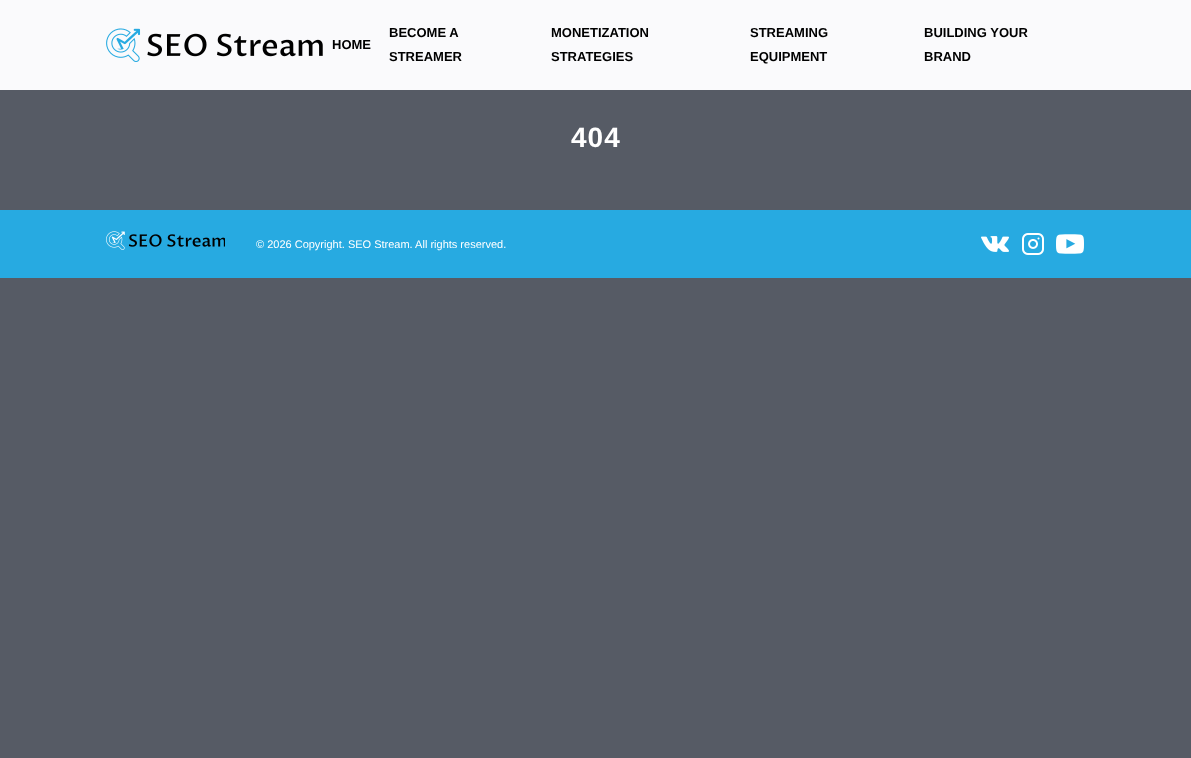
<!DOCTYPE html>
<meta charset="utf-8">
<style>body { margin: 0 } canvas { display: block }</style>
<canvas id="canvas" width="1191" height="758"></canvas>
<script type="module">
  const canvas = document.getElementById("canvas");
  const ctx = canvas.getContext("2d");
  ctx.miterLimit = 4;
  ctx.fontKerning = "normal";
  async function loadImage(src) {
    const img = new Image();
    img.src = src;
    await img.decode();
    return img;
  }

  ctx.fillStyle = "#565b65";
  ctx.fillRect(0, 0, 1191, 758);
  ctx.fillStyle = "#fafafc";
  ctx.fillRect(0, 0, 1191, 90);
  ctx.drawImage(await loadImage("img1.png"), 106, 28, 217, 34);
  ctx.font = "bold 13px Liberation Sans";
  ctx.fillStyle = "#000000";
  ctx.fillText("HOME", 332, 49);
  ctx.fillText("BECOME A", 389, 37);
  ctx.fillText("STREAMER", 389, 61);
  ctx.fillText("MONETIZATION", 551, 37);
  ctx.fillText("STRATEGIES", 551, 61);
  ctx.fillText("STREAMING", 750, 37);
  ctx.fillText("EQUIPMENT", 750, 61);
  ctx.fillText("BUILDING YOUR", 924, 37);
  ctx.fillText("BRAND", 924, 61);
  ctx.letterSpacing = "1px";
  ctx.font = "bold 28px Liberation Sans";
  ctx.fillStyle = "#ffffff";
  ctx.fillText("404", 571, 147);
  ctx.fillStyle = "#27aae1";
  ctx.fillRect(0, 210, 1191, 68);
  ctx.drawImage(await loadImage("img2.png"), 106, 231, 119, 19);
  ctx.letterSpacing = "0px";
  ctx.font = "11px Liberation Sans";
  ctx.fillStyle = "#ffffff";
  ctx.fillText("© 2026 Copyright. SEO Stream. All rights reserved.", 256, 248);
  ctx.drawImage(await loadImage("img3.png"), 981, 236, 28, 16);
  ctx.drawImage(await loadImage("img4.png"), 1022, 233, 22, 22);
  ctx.drawImage(await loadImage("img5.png"), 1056, 234, 28, 20);
</script>
